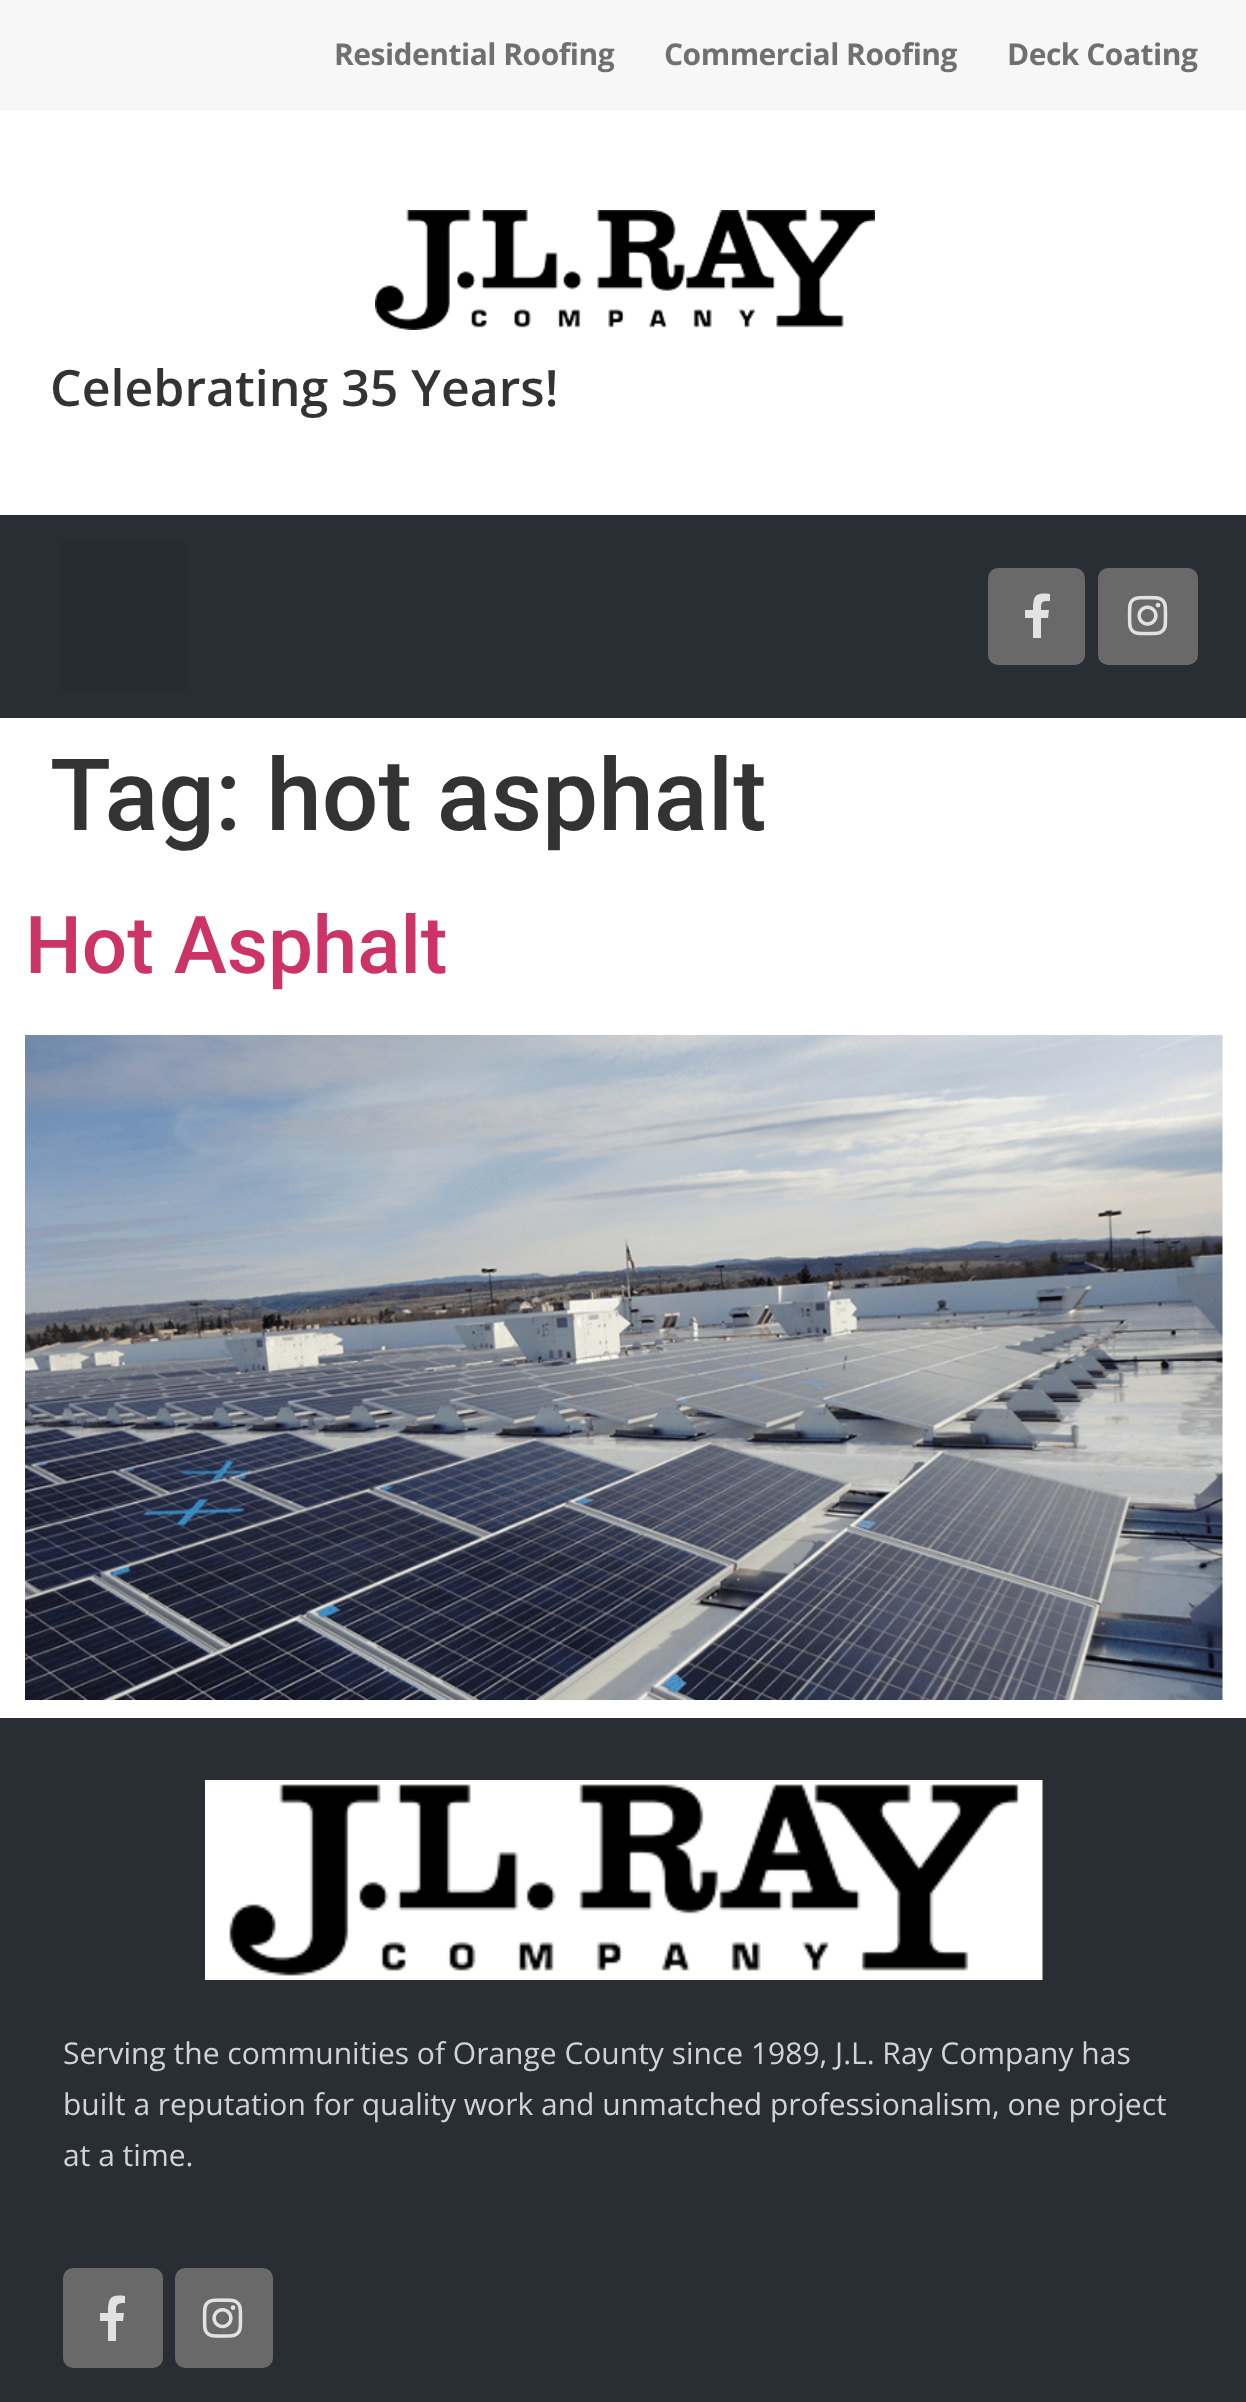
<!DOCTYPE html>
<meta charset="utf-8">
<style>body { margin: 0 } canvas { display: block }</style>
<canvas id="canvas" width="1246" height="2402"></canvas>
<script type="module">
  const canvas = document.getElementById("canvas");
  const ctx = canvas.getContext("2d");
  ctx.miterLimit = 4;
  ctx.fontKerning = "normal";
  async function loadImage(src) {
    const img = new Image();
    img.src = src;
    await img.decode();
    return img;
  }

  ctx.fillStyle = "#ffffff";
  ctx.fillRect(0, 0, 1246, 2402);
  ctx.fillStyle = "#f7f7f7";
  ctx.fillRect(0, 0, 1246, 110);
  ctx.letterSpacing = "-0.5px";
  ctx.font = "bold 30px Open Sans";
  ctx.fillStyle = "#707070";
  ctx.fillText("Residential Roofing", 334, 65);
  ctx.fillText("Commercial Roofing", 664, 65);
  ctx.fillText("Deck Coating", 1007, 65);
  ctx.drawImage(await loadImage("img1.png"), 375, 210, 500, 120);
  ctx.letterSpacing = "0px";
  ctx.font = "600 50px Open Sans";
  ctx.fillStyle = "#333333";
  ctx.fillText("Celebrating 35 Years!", 50, 406);
  ctx.fillStyle = "#292e34";
  ctx.fillRect(0, 515, 1246, 203);
  ctx.fillStyle = "#272c31";
  ctx.beginPath();
  ctx.roundRect(58, 540, 130, 153, 8);
  ctx.fill();
  ctx.fillStyle = "#69696a";
  ctx.beginPath();
  ctx.roundRect(988, 568, 97, 97, 10);
  ctx.fill();
  ctx.fillStyle = "#e2e2e2";
  ctx.beginPath();
  ctx.moveTo(1048, 618);
  ctx.lineTo(1041, 618);
  ctx.lineTo(1041, 638);
  ctx.lineTo(1033, 638);
  ctx.lineTo(1033, 618);
  ctx.lineTo(1025, 618);
  ctx.lineTo(1025, 610);
  ctx.lineTo(1033, 610);
  ctx.bezierCurveTo(1033, 596, 1035, 592, 1050, 594);
  ctx.lineTo(1050, 601);
  ctx.bezierCurveTo(1041, 601, 1041, 602, 1041, 610);
  ctx.lineTo(1049, 610);
  ctx.closePath();
  ctx.fill();
  ctx.fillStyle = "#69696a";
  ctx.beginPath();
  ctx.roundRect(1098, 568, 100, 97, 10);
  ctx.fill();
  ctx.drawImage(await loadImage("img2.png"), 1127, 595, 41, 41);
  ctx.font = "500 100px Roboto";
  ctx.fillStyle = "#333333";
  ctx.fillText("Tag: hot asphalt", 50, 830);
  ctx.font = "500 80px Roboto";
  ctx.fillStyle = "#cc3366";
  ctx.fillText("Hot Asphalt", 25, 973);
  ctx.drawImage(await loadImage("img3.png"), 25, 1035, 1198, 665);
  ctx.fillStyle = "#292e34";
  ctx.fillRect(0, 1718, 1246, 684);
  ctx.drawImage(await loadImage("img4.png"), 205, 1780, 838, 200);
  ctx.font = "30px Open Sans";
  ctx.fillStyle = "#d2d3d4";
  ctx.fillText("Serving the communities of Orange County since 1989, J.L. Ray Company has", 63, 2064);
  ctx.fillText("built a reputation for quality work and unmatched professionalism, one project", 63, 2115);
  ctx.fillText("at a time.", 63, 2166);
  ctx.fillStyle = "#69696a";
  ctx.beginPath();
  ctx.roundRect(63, 2268, 100, 100, 10);
  ctx.fill();
  ctx.fillStyle = "#e2e2e2";
  ctx.beginPath();
  ctx.moveTo(123, 2321);
  ctx.lineTo(116, 2321);
  ctx.lineTo(116, 2341);
  ctx.lineTo(108, 2341);
  ctx.lineTo(108, 2321);
  ctx.lineTo(100, 2321);
  ctx.lineTo(100, 2313);
  ctx.lineTo(108, 2313);
  ctx.bezierCurveTo(108, 2298, 110, 2294, 125, 2296);
  ctx.lineTo(125, 2303);
  ctx.bezierCurveTo(116, 2303, 116, 2305, 116, 2313);
  ctx.lineTo(124, 2313);
  ctx.closePath();
  ctx.fill();
  ctx.fillStyle = "#69696a";
  ctx.beginPath();
  ctx.roundRect(175, 2268, 98, 100, 10);
  ctx.fill();
  ctx.drawImage(await loadImage("img5.png"), 202, 2298, 41, 40);
</script>
